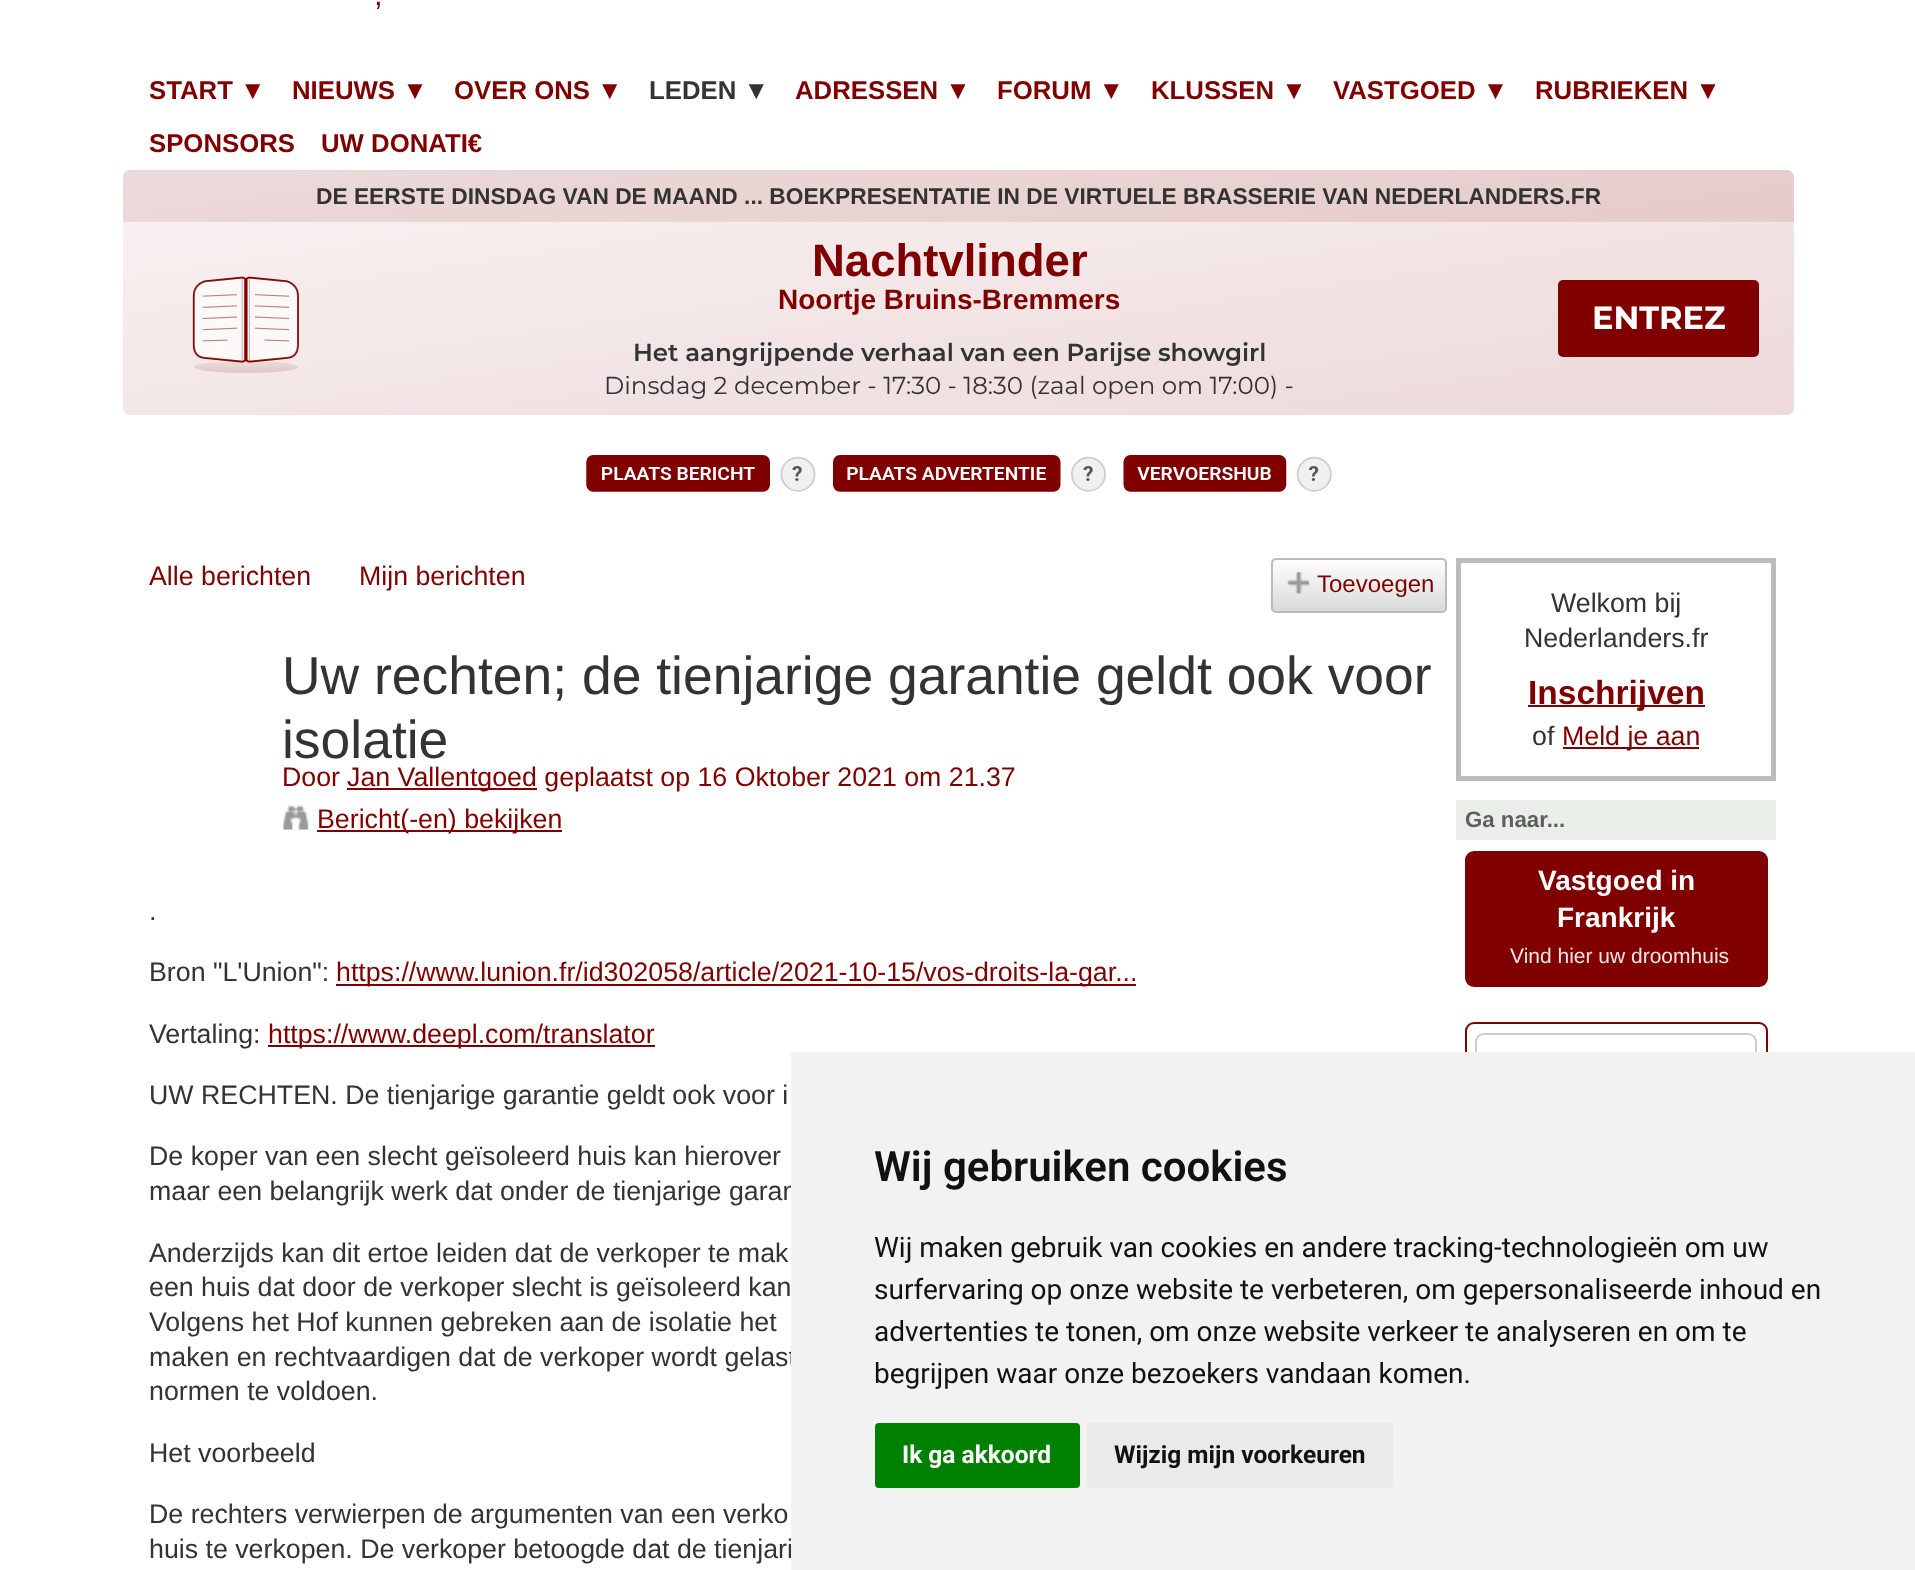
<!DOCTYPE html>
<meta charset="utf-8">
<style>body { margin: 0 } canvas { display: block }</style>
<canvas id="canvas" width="1915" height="1570"></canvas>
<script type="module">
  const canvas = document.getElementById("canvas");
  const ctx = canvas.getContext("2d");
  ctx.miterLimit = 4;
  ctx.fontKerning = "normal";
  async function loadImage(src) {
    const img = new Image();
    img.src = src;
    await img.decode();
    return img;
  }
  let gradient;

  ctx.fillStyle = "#ffffff";
  ctx.fillRect(0, 0, 1915, 1570);
  ctx.font = "31px Liberation Sans";
  ctx.fillStyle = "#800000";
  ctx.fillText(",", 374, 5);
  ctx.font = "bold 25.75px Liberation Sans";
  ctx.fillText("START ▼", 149, 99);
  ctx.fillText("NIEUWS ▼", 292, 99);
  ctx.fillText("OVER ONS ▼", 454, 99);
  ctx.fillStyle = "#333333";
  ctx.fillText("LEDEN ▼", 649, 99);
  ctx.fillStyle = "#800000";
  ctx.fillText("ADRESSEN ▼", 795, 99);
  ctx.fillText("FORUM ▼", 997, 99);
  ctx.fillText("KLUSSEN ▼", 1151, 99);
  ctx.fillText("VASTGOED ▼", 1333, 99);
  ctx.fillText("RUBRIEKEN ▼", 1535, 99);
  ctx.fillText("SPONSORS", 149, 152);
  ctx.fillText("UW DONATI€", 321, 152);
  gradient = ctx.createLinearGradient(923, 52, 993, 532);
  gradient.addColorStop(0, "#f9f3f3");
  gradient.addColorStop(1, "#edd9d9");
  ctx.fillStyle = gradient;
  ctx.beginPath();
  ctx.roundRect(123, 170, 1671, 245, 7);
  ctx.fill();
  ctx.fillStyle = "rgba(128, 0, 0, 0.1)";
  ctx.beginPath();
  ctx.roundRect(123, 170, 1671, 52, [7, 7, 0, 0]);
  ctx.fill();
  ctx.font = "bold 22.75px Liberation Sans";
  ctx.fillStyle = "#333333";
  ctx.fillText("DE EERSTE DINSDAG VAN DE MAAND ... BOEKPRESENTATIE IN DE VIRTUELE BRASSERIE VAN NEDERLANDERS.FR", 316, 204);
  ctx.drawImage(await loadImage("img1.png"), 192, 276, 107, 97);
  ctx.font = "bold 45.5px Liberation Sans";
  ctx.fillStyle = "#800000";
  ctx.fillText("Nachtvlinder", 812, 276);
  ctx.font = "bold 28px Liberation Sans";
  ctx.fillText("Noortje Bruins-Bremmers", 778, 309);
  ctx.font = "600 24.5px Montserrat";
  ctx.fillStyle = "#333333";
  ctx.fillText("Het aangrijpende verhaal van een Parijse showgirl", 633, 361);
  ctx.font = "24.5px Montserrat";
  ctx.fillText("Dinsdag 2 december - 17:30 - 18:30 (zaal open om 17:00) -", 604, 394);
  ctx.fillStyle = "#800000";
  ctx.beginPath();
  ctx.roundRect(1558, 280, 201, 77, 5);
  ctx.fill();
  ctx.font = "bold 32px Montserrat";
  ctx.fillStyle = "#ffffff";
  ctx.fillText("ENTREZ", 1592, 329);
  ctx.drawImage(await loadImage("img2.png"), 586, 455, 746, 37);
  ctx.font = "26.75px Liberation Sans";
  ctx.fillStyle = "#800000";
  ctx.fillText("Alle berichten", 149, 585);
  ctx.fillText("Mijn berichten", 359, 585);
  ctx.drawImage(await loadImage("img3.png"), 1270, 562, 177, 51);
  ctx.beginPath();
  ctx.roundRect(1272, 559, 174, 53, 4);
  ctx.strokeStyle = "#bbbbbb";
  ctx.lineWidth = 2;
  ctx.stroke();
  ctx.drawImage(await loadImage("img4.png"), 1287, 571, 23, 23);
  ctx.font = "24px Liberation Sans";
  ctx.fillText("Toevoegen", 1317, 592);
  ctx.font = "53.45px Liberation Sans";
  ctx.fillStyle = "#333333";
  ctx.fillText("Uw rechten; de tienjarige garantie geldt ook voor", 282, 694);
  ctx.fillText("isolatie", 282, 758);
  ctx.font = "26.75px Liberation Sans";
  ctx.fillStyle = "#800000";
  ctx.fillText("Door", 282, 786);
  ctx.fillRect(347, 788, 190, 2);
  ctx.fillText("Jan Vallentgoed geplaatst op 16 Oktober 2021 om 21.37", 347, 786);
  ctx.drawImage(await loadImage("img5.png"), 283, 804, 26, 26);
  ctx.fillRect(317, 830, 245, 2);
  ctx.fillText("Bericht(-en) bekijken", 317, 828);
  ctx.fillStyle = "#333333";
  ctx.fillText(".", 149, 920);
  ctx.fillText("Bron \"L'Union\":", 149, 981);
  ctx.fillStyle = "#800000";
  ctx.fillRect(336, 984, 800, 2);
  ctx.fillText("https://www.lunion.fr/id302058/article/2021-10-15/vos-droits-la-gar...", 336, 981);
  ctx.fillStyle = "#333333";
  ctx.fillText("Vertaling:", 149, 1043);
  ctx.fillStyle = "#800000";
  ctx.fillRect(268, 1045, 387, 2);
  ctx.fillText("https://www.deepl.com/translator", 268, 1043);
  ctx.fillStyle = "#333333";
  ctx.fillText("UW RECHTEN. De tienjarige garantie geldt ook voor i", 149, 1104);
  ctx.fillText("De koper van een slecht geïsoleerd huis kan hierover", 149, 1165);
  ctx.fillText("maar een belangrijk werk dat onder de tienjarige garan", 149, 1200);
  ctx.fillText("Anderzijds kan dit ertoe leiden dat de verkoper te mak", 149, 1262);
  ctx.fillText("een huis dat door de verkoper slecht is geïsoleerd kan", 149, 1296);
  ctx.fillText("Volgens het Hof kunnen gebreken aan de isolatie het", 149, 1331);
  ctx.fillText("maken en rechtvaardigen dat de verkoper wordt gelast", 149, 1366);
  ctx.fillText("normen te voldoen.", 149, 1400);
  ctx.fillText("Het voorbeeld", 149, 1462);
  ctx.fillText("De rechters verwierpen de argumenten van een verko", 149, 1523);
  ctx.fillText("huis te verkopen. De verkoper betoogde dat de tienjari", 149, 1558);
  ctx.lineWidth = 5;
  ctx.strokeRect(1458.5, 560.5, 315, 218);
  ctx.fillText("Welkom bij", 1551, 612);
  ctx.fillText("Nederlanders.fr", 1524, 647);
  ctx.fillStyle = "#800000";
  ctx.fillRect(1528, 705, 177, 2);
  ctx.font = "bold 33.5px Liberation Sans";
  ctx.fillText("Inschrijven", 1528, 704);
  ctx.font = "26.75px Liberation Sans";
  ctx.fillStyle = "#333333";
  ctx.fillText("of", 1532, 745);
  ctx.fillStyle = "#800000";
  ctx.fillRect(1563, 747, 136, 2);
  ctx.fillText("Meld je aan", 1562, 745);
  ctx.fillStyle = "#e9eee8";
  ctx.fillRect(1456, 800, 320, 40);
  ctx.font = "bold 22.25px Liberation Sans";
  ctx.fillStyle = "#5e5e5e";
  ctx.fillText("Ga naar...", 1465, 827);
  ctx.fillStyle = "#800000";
  ctx.beginPath();
  ctx.roundRect(1465, 851, 303, 136, 9);
  ctx.fill();
  ctx.font = "bold 28px Liberation Sans";
  ctx.fillStyle = "#ffffff";
  ctx.fillText("Vastgoed in", 1538, 890);
  ctx.fillText("Frankrijk", 1557, 927);
  ctx.font = "21px Liberation Sans";
  ctx.fillStyle = "#f2e6e6";
  ctx.fillText("Vind hier uw droomhuis", 1510, 963);
  ctx.beginPath();
  ctx.roundRect(1466, 1023, 301, 206, 8);
  ctx.strokeStyle = "#800000";
  ctx.lineWidth = 2;
  ctx.stroke();
  ctx.beginPath();
  ctx.roundRect(1476, 1034, 280, 61, 8);
  ctx.strokeStyle = "#cccccc";
  ctx.stroke();
  ctx.fillStyle = "#f2f2f2";
  ctx.fillRect(791, 1052, 1124, 518);
  ctx.font = "600 42px Roboto";
  ctx.fillStyle = "#111111";
  ctx.fillText("Wij gebruiken cookies", 874, 1181);
  ctx.font = "28px Roboto";
  ctx.fillText("Wij maken gebruik van cookies en andere tracking-technologieën om uw", 874, 1257);
  ctx.fillText("surfervaring op onze website te verbeteren, om gepersonaliseerde inhoud en", 874, 1299);
  ctx.fillText("advertenties te tonen, om onze website verkeer te analyseren en om te", 874, 1341);
  ctx.fillText("begrijpen waar onze bezoekers vandaan komen.", 874, 1383);
  ctx.fillStyle = "#008000";
  ctx.beginPath();
  ctx.roundRect(875, 1423, 205, 65, 4);
  ctx.fill();
  ctx.font = "bold 24.5px Roboto";
  ctx.fillStyle = "#ffffff";
  ctx.fillText("Ik ga akkoord", 902, 1463);
  ctx.fillStyle = "#eaeaea";
  ctx.beginPath();
  ctx.roundRect(1087, 1423, 306, 65, 4);
  ctx.fill();
  ctx.fillStyle = "#111111";
  ctx.fillText("Wijzig mijn voorkeuren", 1114, 1463);
</script>
